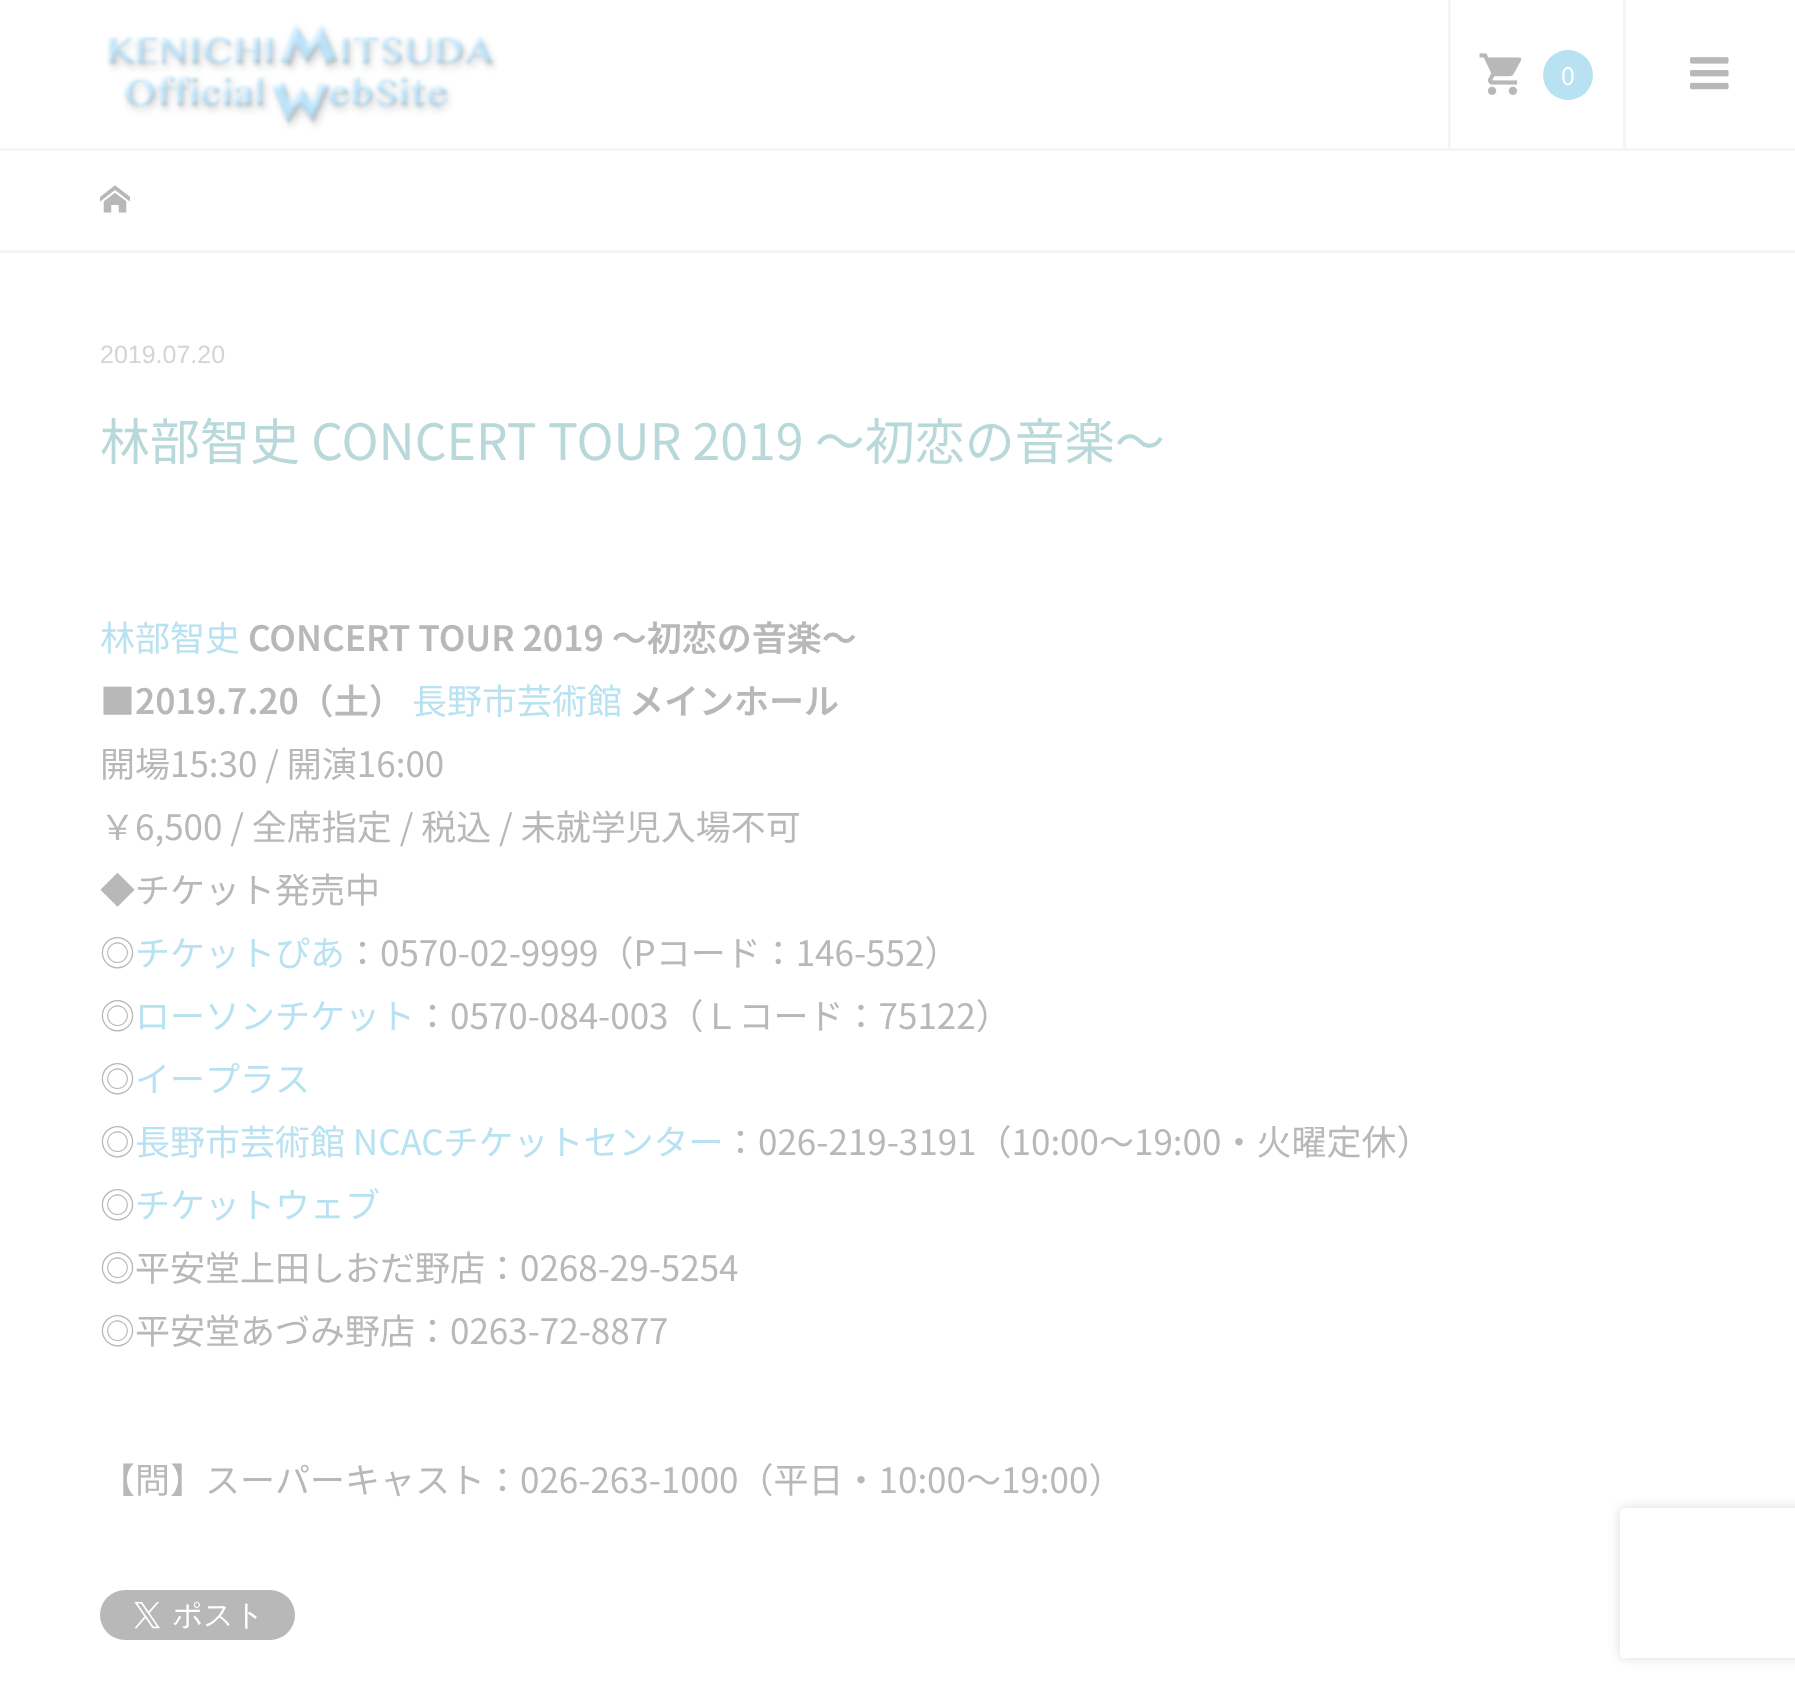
<!DOCTYPE html>
<meta charset="utf-8">
<style>body { margin: 0 } canvas { display: block }</style>
<canvas id="canvas" width="1795" height="1692"></canvas>
<script type="module">
  const canvas = document.getElementById("canvas");
  const ctx = canvas.getContext("2d");
  ctx.miterLimit = 4;
  ctx.fontKerning = "normal";
  async function loadImage(src) {
    const img = new Image();
    img.src = src;
    await img.decode();
    return img;
  }

  ctx.fillStyle = "#ffffff";
  ctx.fillRect(0, 0, 1795, 1692);
  ctx.fillStyle = "#f5f5f5";
  ctx.fillRect(0, 148, 1795, 3);
  ctx.drawImage(await loadImage("img1.png"), 106, 22, 394, 108);
  ctx.fillRect(1448, 0, 3, 148);
  ctx.drawImage(await loadImage("img2.png"), 1479, 53, 43, 42);
  ctx.fillStyle = "#b8e2f1";
  ctx.beginPath();
  ctx.arc(1568, 75, 25, 0, Math.PI * 2);
  ctx.fill();
  ctx.font = "25px Noto Sans JP";
  ctx.fillStyle = "#ffffff";
  ctx.fillText("0", 1561, 85);
  ctx.fillStyle = "#f5f5f5";
  ctx.fillRect(1623, 0, 3, 148);
  ctx.drawImage(await loadImage("img3.png"), 1690, 57, 39, 33);
  ctx.fillRect(0, 250, 1795, 3);
  ctx.drawImage(await loadImage("img4.png"), 100, 185, 30, 28);
  ctx.font = "25px Liberation Sans";
  ctx.fillStyle = "#d4d4d4";
  ctx.fillText("2019.07.20", 100, 363);
  ctx.font = "50px Noto Sans JP";
  ctx.fillStyle = "#b8d8da";
  ctx.fillText("林部智史 CONCERT TOUR 2019 ～初恋の音楽～", 100, 460);
  ctx.font = "35px Noto Sans JP";
  ctx.fillStyle = "#b8e2f1";
  ctx.fillText("林部智史", 100, 651);
  ctx.font = "600 35px Noto Sans JP";
  ctx.fillStyle = "#b8b8b8";
  ctx.fillText("CONCERT TOUR 2019 ～初恋の音楽～", 248, 651);
  ctx.fillText("■2019.7.20（土）", 100, 714);
  ctx.font = "35px Noto Sans JP";
  ctx.fillStyle = "#b8e2f1";
  ctx.fillText("長野市芸術館", 412, 714);
  ctx.font = "600 35px Noto Sans JP";
  ctx.fillStyle = "#b8b8b8";
  ctx.fillText("メインホール", 629, 714);
  ctx.font = "35px Noto Sans JP";
  ctx.fillText("開場15:30 / 開演16:00", 100, 777);
  ctx.fillText("￥6,500 / 全席指定 / 税込 / 未就学児入場不可", 100, 840);
  ctx.fillText("◆チケット発売中", 100, 903);
  ctx.fillText("◎", 100, 966);
  ctx.fillStyle = "#b8e2f1";
  ctx.fillText("チケットぴあ", 135, 966);
  ctx.fillStyle = "#b8b8b8";
  ctx.fillText("：0570-02-9999（Pコード：146-552）", 345, 966);
  ctx.fillText("◎", 100, 1029);
  ctx.fillStyle = "#b8e2f1";
  ctx.fillText("ローソンチケット", 135, 1029);
  ctx.fillStyle = "#b8b8b8";
  ctx.fillText("：0570-084-003（Ｌコード：75122）", 415, 1029);
  ctx.fillText("◎", 100, 1092);
  ctx.fillStyle = "#b8e2f1";
  ctx.fillText("イープラス", 135, 1092);
  ctx.fillStyle = "#b8b8b8";
  ctx.fillText("◎", 100, 1155);
  ctx.fillStyle = "#b8e2f1";
  ctx.fillText("長野市芸術館 NCACチケットセンター", 135, 1155);
  ctx.fillStyle = "#b8b8b8";
  ctx.fillText("：026-219-3191（10:00～19:00・火曜定休）", 723, 1155);
  ctx.fillText("◎", 100, 1218);
  ctx.fillStyle = "#b8e2f1";
  ctx.fillText("チケットウェブ", 135, 1218);
  ctx.fillStyle = "#b8b8b8";
  ctx.fillText("◎平安堂上田しおだ野店：0268-29-5254", 100, 1281);
  ctx.fillText("◎平安堂あづみ野店：0263-72-8877", 100, 1344);
  ctx.fillText("【問】スーパーキャスト：026-263-1000（平日・10:00～19:00）", 100, 1493);
  ctx.drawImage(await loadImage("img5.png"), 100, 1590, 195, 50);
  ctx.save();
  ctx.beginPath();
  ctx.moveTo(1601, 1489);
  ctx.lineTo(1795, 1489);
  ctx.lineTo(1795, 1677);
  ctx.lineTo(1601, 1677);
  ctx.closePath();
  ctx.moveTo(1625, 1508);
  ctx.lineTo(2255, 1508);
  ctx.bezierCurveTo(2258, 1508, 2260, 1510, 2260, 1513);
  ctx.lineTo(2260, 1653);
  ctx.bezierCurveTo(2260, 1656, 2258, 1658, 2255, 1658);
  ctx.lineTo(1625, 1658);
  ctx.bezierCurveTo(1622, 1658, 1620, 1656, 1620, 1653);
  ctx.lineTo(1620, 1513);
  ctx.bezierCurveTo(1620, 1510, 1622, 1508, 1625, 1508);
  ctx.closePath();
  ctx.clip("evenodd");
  ctx.fillStyle = "#dbdbdb";
  ctx.filter = "blur(6px)";
  ctx.beginPath();
  ctx.roundRect(1620, 1508, 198, 150, 5);
  ctx.fill();
  ctx.filter = "none";
  ctx.restore();
</script>
